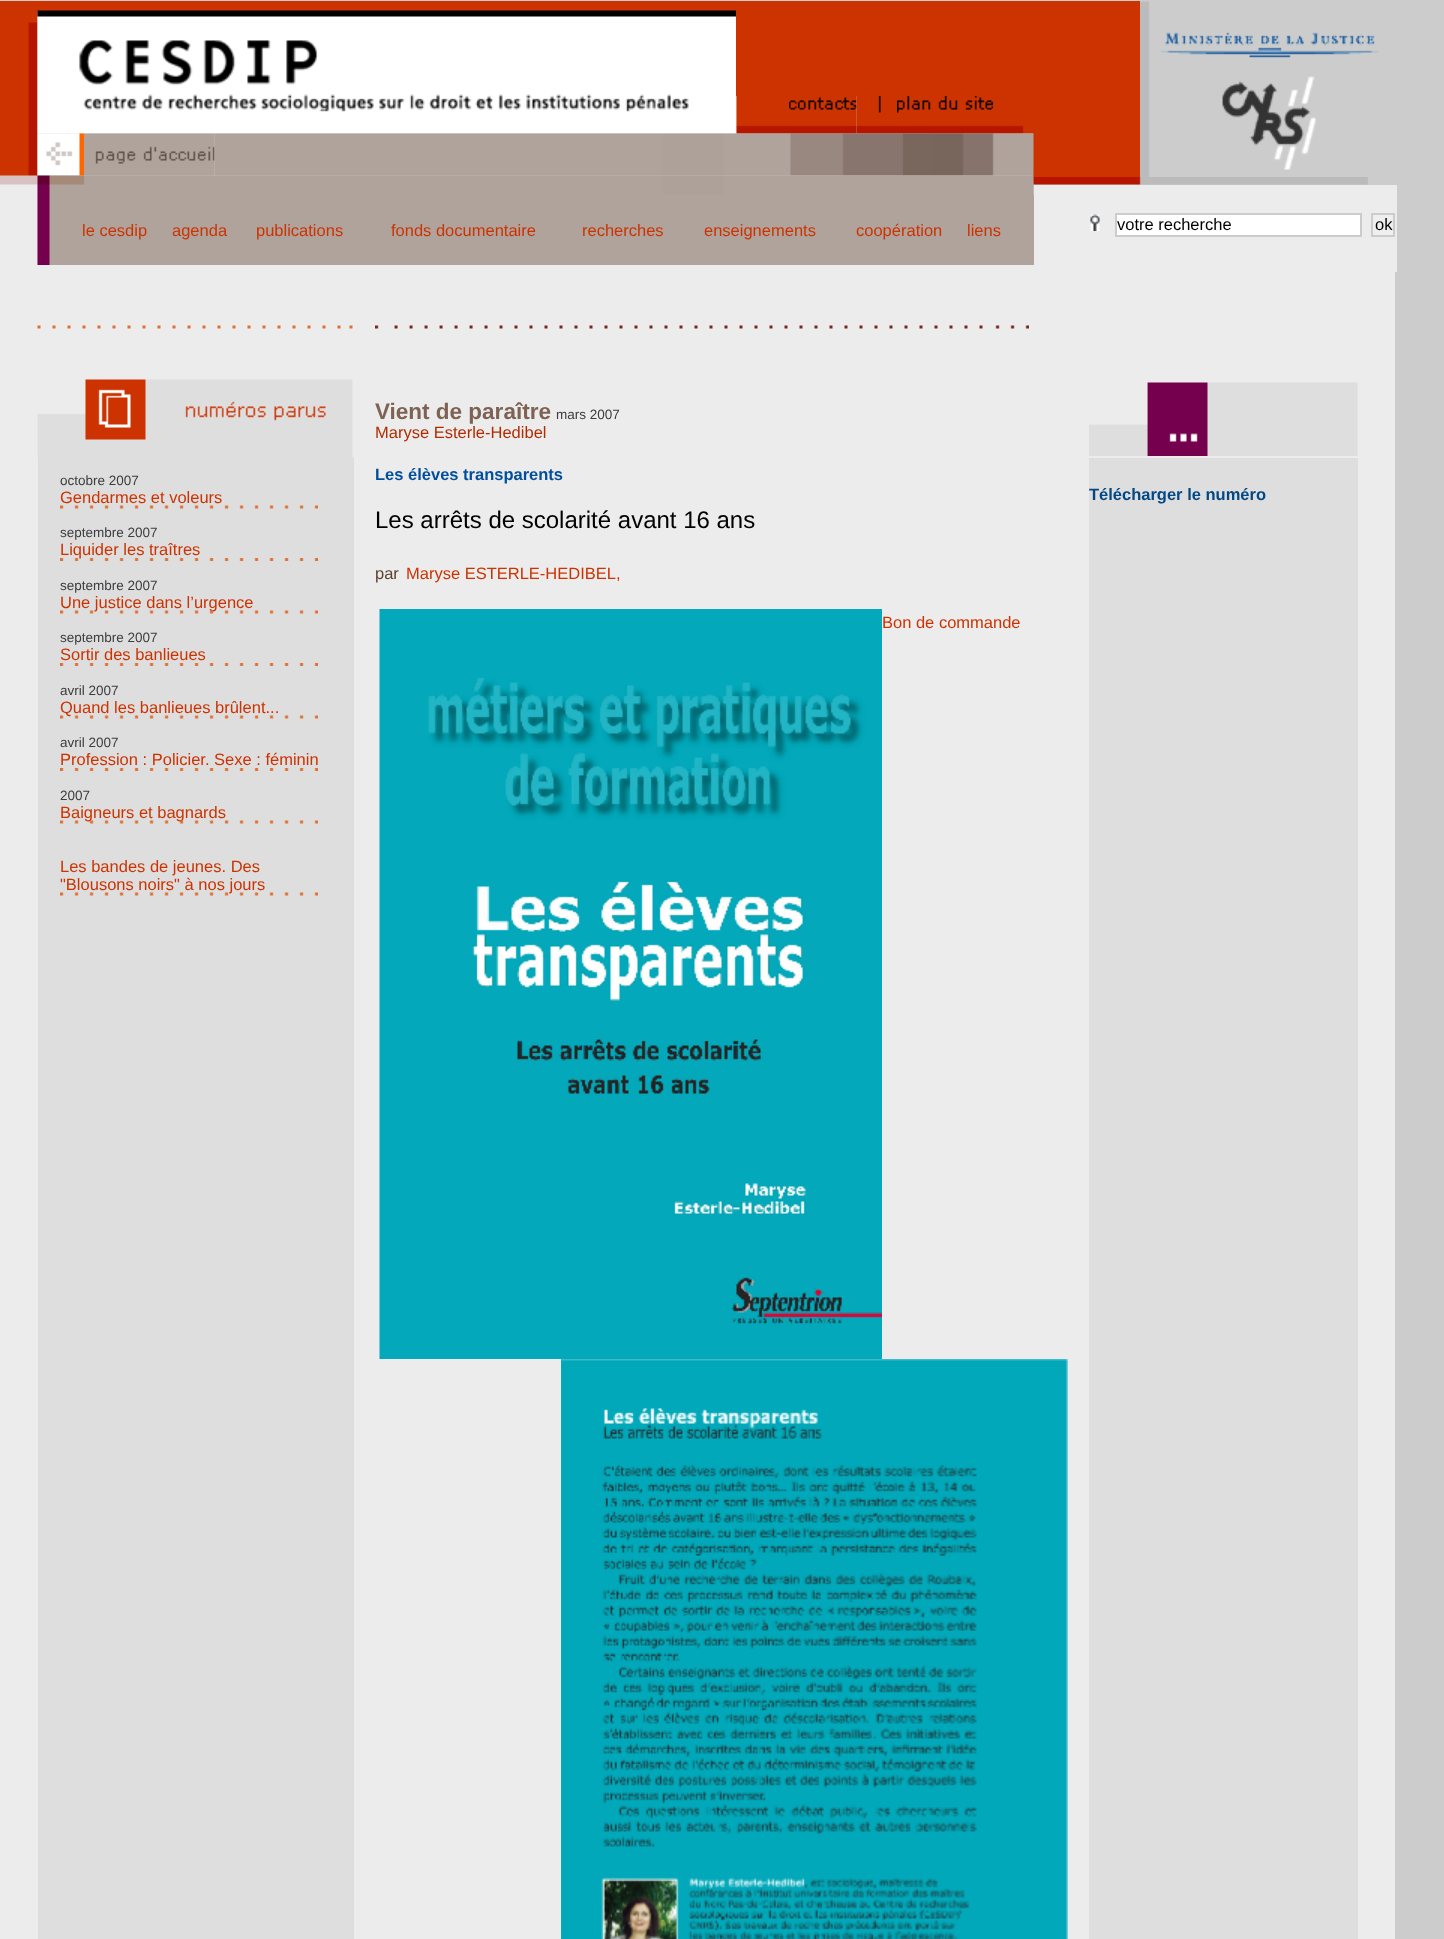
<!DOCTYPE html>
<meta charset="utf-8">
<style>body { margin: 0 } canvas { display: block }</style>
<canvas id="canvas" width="1444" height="1939"></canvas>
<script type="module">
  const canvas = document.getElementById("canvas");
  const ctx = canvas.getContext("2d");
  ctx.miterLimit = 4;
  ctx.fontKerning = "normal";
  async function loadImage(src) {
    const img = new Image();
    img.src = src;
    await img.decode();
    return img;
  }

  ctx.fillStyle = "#cccccc";
  ctx.fillRect(0, 0, 1444, 1939);
  ctx.fillStyle = "#cc3300";
  ctx.fillRect(0, 1, 1140, 10);
  ctx.drawImage(await loadImage("img1.png"), 1140, 1, 239, 176);
  ctx.drawImage(await loadImage("img2.png"), 0, 11, 38, 254);
  ctx.drawImage(await loadImage("img3.png"), 37, 10, 700, 124);
  ctx.fillRect(736, 10, 257, 86);
  ctx.drawImage(await loadImage("img4.png"), 993, 11, 40, 123);
  ctx.fillRect(1033, 11, 107, 166);
  ctx.drawImage(await loadImage("img5.png"), 736, 96, 53, 38);
  ctx.drawImage(await loadImage("img6.png"), 789, 96, 68, 38);
  ctx.drawImage(await loadImage("img7.png"), 856, 96, 41, 38);
  ctx.drawImage(await loadImage("img8.png"), 897, 96, 96, 38);
  ctx.drawImage(await loadImage("img9.png"), 37, 133, 47, 43);
  ctx.drawImage(await loadImage("img10.png"), 84, 133, 131, 43);
  ctx.drawImage(await loadImage("img11.png"), 214, 133, 820, 43);
  ctx.drawImage(await loadImage("img12.png"), 37, 175, 997, 20);
  ctx.drawImage(await loadImage("img13.png"), 1033, 177, 335, 8);
  ctx.drawImage(await loadImage("img14.png"), 37, 195, 32, 70);
  ctx.fillStyle = "#b0a39c";
  ctx.fillRect(69, 195, 965, 70);
  ctx.font = "16.5px Liberation Sans";
  ctx.fillStyle = "#cc3300";
  ctx.fillText("le cesdip", 82, 236);
  ctx.fillText("agenda", 172, 236);
  ctx.fillText("publications", 256, 236);
  ctx.fillText("fonds documentaire", 391, 236);
  ctx.fillText("recherches", 582, 236);
  ctx.fillText("enseignements", 704, 236);
  ctx.fillText("coopération", 856, 236);
  ctx.fillText("liens", 967, 236);
  ctx.fillStyle = "#ececec";
  ctx.fillRect(1034, 185, 363, 80);
  ctx.drawImage(await loadImage("img15.png"), 1090, 214, 10, 17);
  ctx.fillStyle = "#ffffff";
  ctx.beginPath();
  ctx.rect(1116, 214, 245, 22);
  ctx.fill();
  ctx.strokeStyle = "#cccccc";
  ctx.lineWidth = 2;
  ctx.stroke();
  ctx.fillStyle = "#000000";
  ctx.fillText("votre recherche", 1117, 230);
  ctx.fillStyle = "#efefef";
  ctx.beginPath();
  ctx.rect(1372, 214, 22, 22);
  ctx.fill();
  ctx.stroke();
  ctx.fillStyle = "#000000";
  ctx.fillText("ok", 1375, 230);
  ctx.fillStyle = "#ececec";
  ctx.fillRect(0, 265, 1397, 7);
  ctx.fillRect(0, 272, 1395, 1667);
  ctx.drawImage(await loadImage("img16.png"), 37, 325, 316, 4);
  ctx.drawImage(await loadImage("img17.png"), 375, 325, 654, 4);
  ctx.fillStyle = "#dedede";
  ctx.fillRect(38, 457, 316, 1482);
  ctx.drawImage(await loadImage("img18.png"), 37, 379, 317, 79);
  ctx.font = "bold 22.5px Liberation Sans";
  ctx.fillStyle = "#7e6354";
  ctx.fillText("Vient de paraître", 375, 419);
  ctx.font = "13.5px Liberation Sans";
  ctx.fillStyle = "#3d3d3d";
  ctx.fillText("mars 2007", 556, 419);
  ctx.font = "16.5px Liberation Sans";
  ctx.fillStyle = "#b22c00";
  ctx.fillText("Maryse Esterle-Hedibel", 375, 438);
  ctx.font = "bold 16.5px Liberation Sans";
  ctx.fillStyle = "#004e9d";
  ctx.fillText("Les élèves transparents", 375, 480);
  ctx.font = "24px Liberation Sans";
  ctx.fillStyle = "#000000";
  ctx.fillText("Les arrêts de scolarité avant 16 ans", 375, 528);
  ctx.font = "16.5px Liberation Sans";
  ctx.fillStyle = "#5c4131";
  ctx.fillText("par", 375, 579);
  ctx.fillStyle = "#cc3300";
  ctx.fillText("Maryse ESTERLE-HEDIBEL,", 406, 579);
  ctx.drawImage(await loadImage("img19.png"), 379, 609, 503, 750);
  ctx.fillText("Bon de commande", 882, 628);
  ctx.drawImage(await loadImage("img20.png"), 561, 1359, 507, 580);
  ctx.drawImage(await loadImage("img21.png"), 1089, 382, 269, 74);
  ctx.font = "13.5px Liberation Sans";
  ctx.fillStyle = "#3d3d3d";
  ctx.fillText("octobre 2007", 60, 485);
  ctx.font = "16.5px Liberation Sans";
  ctx.fillStyle = "#cc3300";
  ctx.fillText("Gendarmes et voleurs", 60, 503);
  ctx.drawImage(await loadImage("img22.png"), 60, 505, 258, 4);
  ctx.font = "13.5px Liberation Sans";
  ctx.fillStyle = "#3d3d3d";
  ctx.fillText("septembre 2007", 60, 537);
  ctx.font = "16.5px Liberation Sans";
  ctx.fillStyle = "#cc3300";
  ctx.fillText("Liquider les traîtres", 60, 555);
  ctx.drawImage(await loadImage("img23.png"), 60, 558, 258, 3);
  ctx.font = "13.5px Liberation Sans";
  ctx.fillStyle = "#3d3d3d";
  ctx.fillText("septembre 2007", 60, 590);
  ctx.font = "16.5px Liberation Sans";
  ctx.fillStyle = "#cc3300";
  ctx.fillText("Une justice dans l’urgence", 60, 608);
  ctx.drawImage(await loadImage("img24.png"), 60, 610, 258, 4);
  ctx.font = "13.5px Liberation Sans";
  ctx.fillStyle = "#3d3d3d";
  ctx.fillText("septembre 2007", 60, 642);
  ctx.font = "16.5px Liberation Sans";
  ctx.fillStyle = "#cc3300";
  ctx.fillText("Sortir des banlieues", 60, 660);
  ctx.drawImage(await loadImage("img25.png"), 60, 663, 258, 3);
  ctx.font = "13.5px Liberation Sans";
  ctx.fillStyle = "#3d3d3d";
  ctx.fillText("avril 2007", 60, 695);
  ctx.font = "16.5px Liberation Sans";
  ctx.fillStyle = "#cc3300";
  ctx.fillText("Quand les banlieues brûlent...", 60, 713);
  ctx.drawImage(await loadImage("img26.png"), 60, 715, 258, 4);
  ctx.font = "13.5px Liberation Sans";
  ctx.fillStyle = "#3d3d3d";
  ctx.fillText("avril 2007", 60, 747);
  ctx.font = "16.5px Liberation Sans";
  ctx.fillStyle = "#cc3300";
  ctx.fillText("Profession : Policier. Sexe : féminin", 60, 765);
  ctx.drawImage(await loadImage("img25.png"), 60, 768, 258, 3);
  ctx.font = "13.5px Liberation Sans";
  ctx.fillStyle = "#3d3d3d";
  ctx.fillText("2007", 60, 800);
  ctx.font = "16.5px Liberation Sans";
  ctx.fillStyle = "#cc3300";
  ctx.fillText("Baigneurs et bagnards", 60, 818);
  ctx.drawImage(await loadImage("img27.png"), 60, 820, 258, 4);
  ctx.fillText("Les bandes de jeunes. Des", 60, 872);
  ctx.fillText("\"Blousons noirs\" à nos jours", 60, 890);
  ctx.drawImage(await loadImage("img28.png"), 60, 892, 258, 4);
  ctx.fillStyle = "#dedede";
  ctx.fillRect(1089, 458, 269, 1481);
  ctx.font = "bold 16.5px Liberation Sans";
  ctx.fillStyle = "#024884";
  ctx.fillText("Télécharger le numéro", 1089, 500);
</script>
